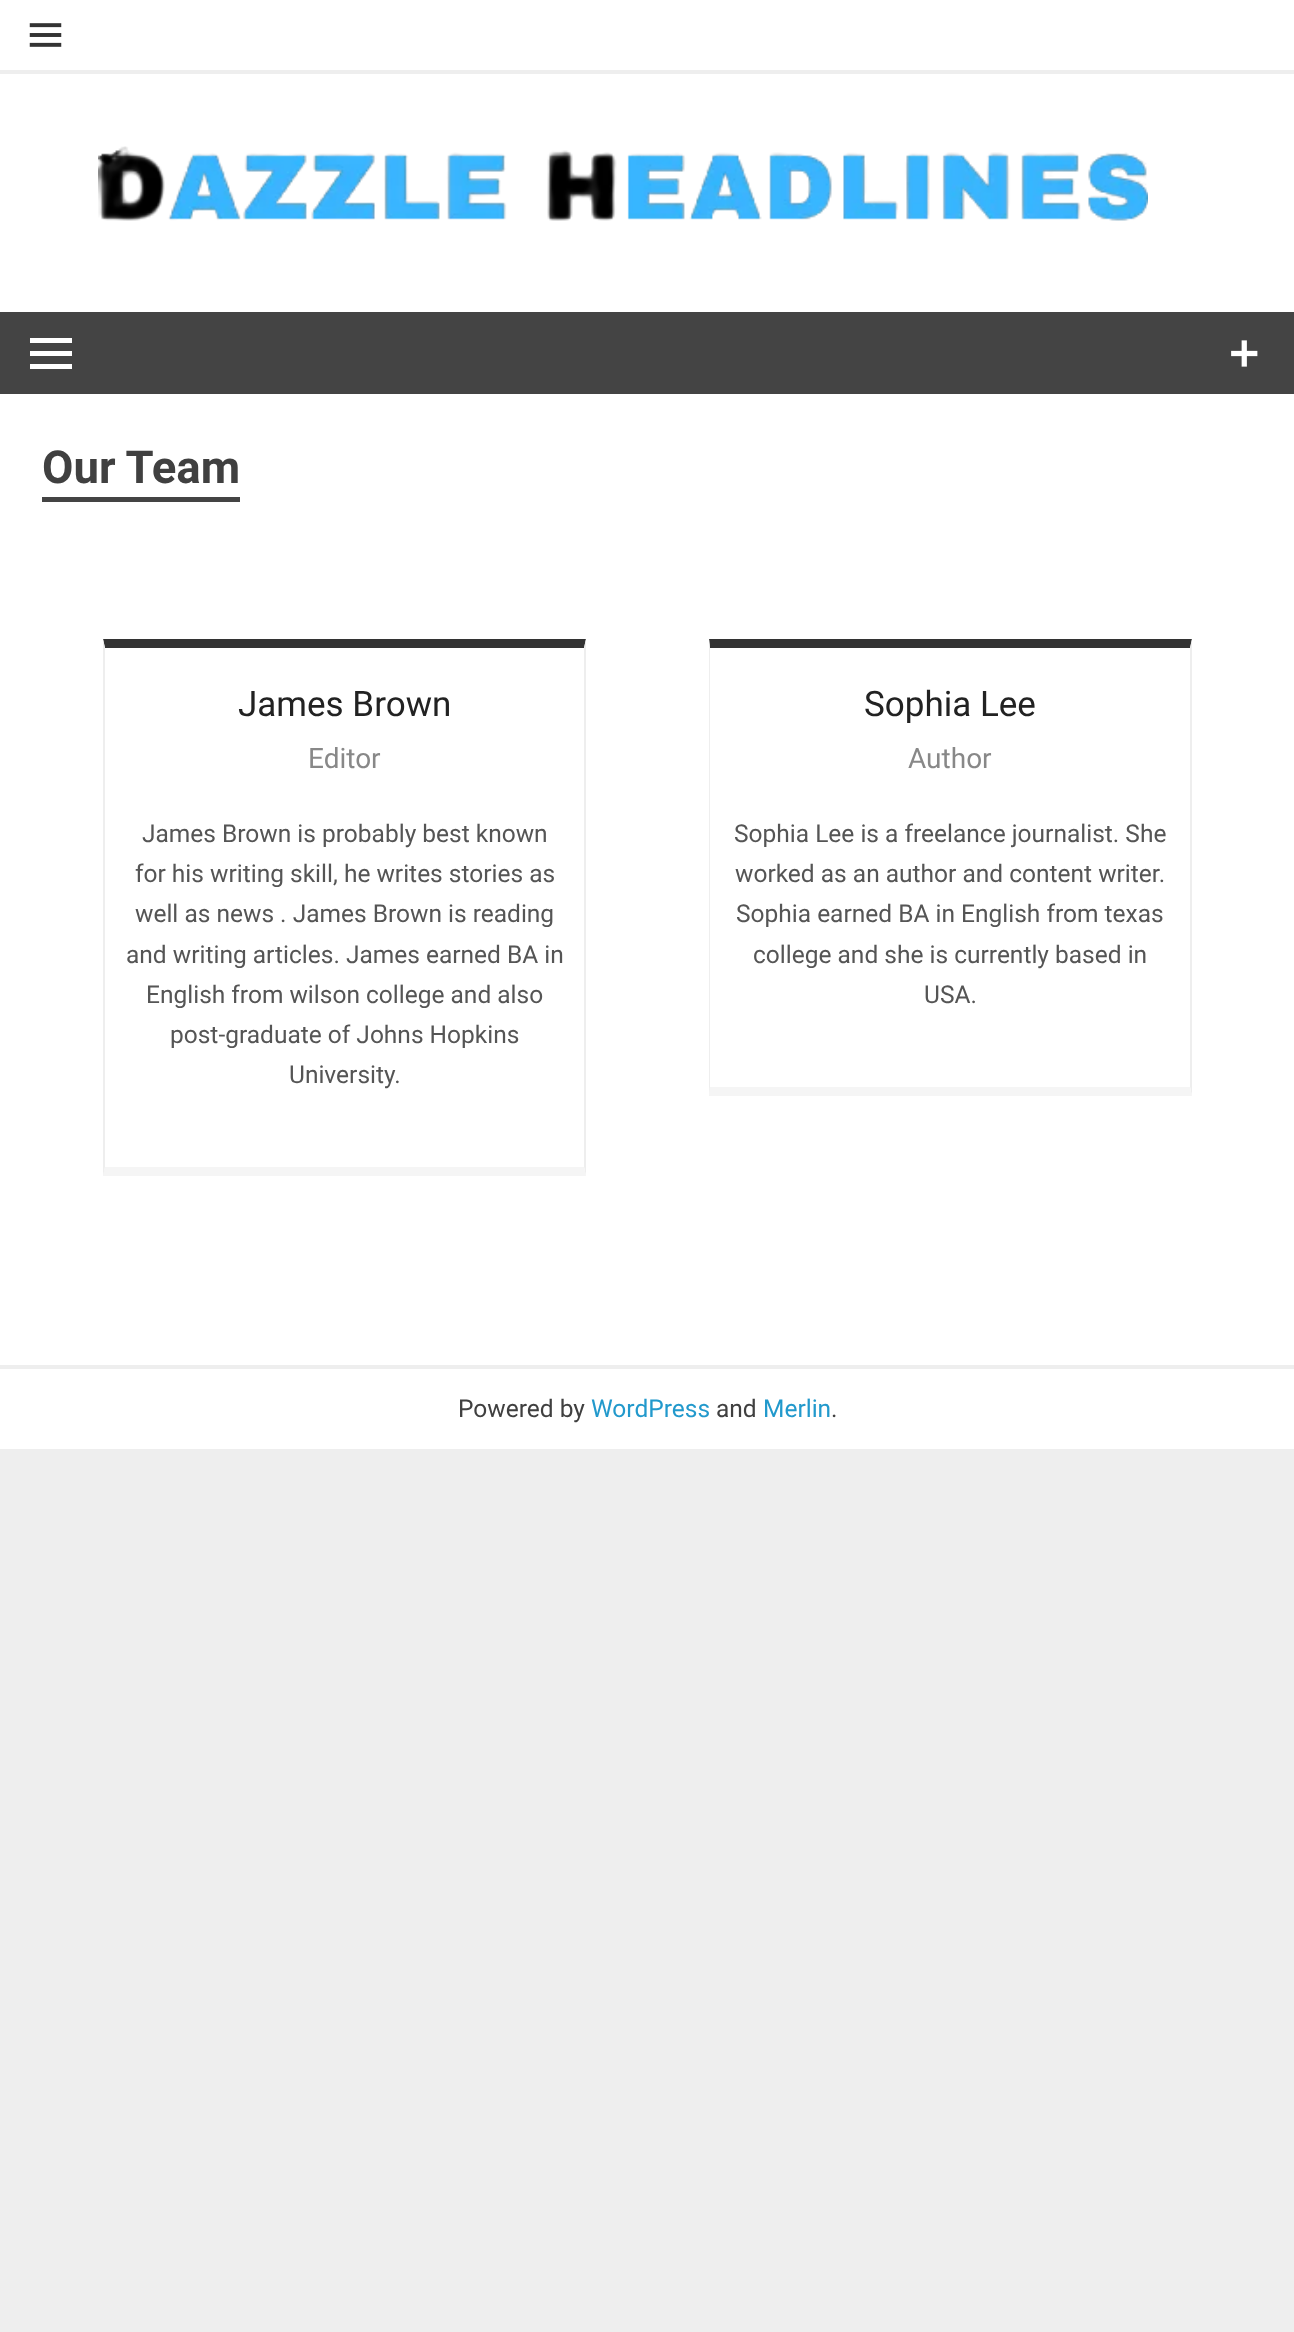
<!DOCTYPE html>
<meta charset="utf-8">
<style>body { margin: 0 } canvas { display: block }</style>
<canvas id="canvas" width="1294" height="2332"></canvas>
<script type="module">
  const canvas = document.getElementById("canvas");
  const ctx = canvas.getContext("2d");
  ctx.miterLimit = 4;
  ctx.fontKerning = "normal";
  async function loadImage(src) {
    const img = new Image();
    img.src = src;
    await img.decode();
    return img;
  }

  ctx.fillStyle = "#eeeeee";
  ctx.fillRect(0, 0, 1294, 2332);
  ctx.fillStyle = "#ffffff";
  ctx.fillRect(0, 0, 1294, 1449);
  ctx.fillStyle = "#eeeeee";
  ctx.fillRect(0, 70, 1294, 4);
  ctx.drawImage(await loadImage("img1.png"), 29, 23, 33, 24);
  ctx.drawImage(await loadImage("img2.png"), 98, 146, 1050, 75);
  ctx.fillStyle = "#444444";
  ctx.fillRect(0, 312, 1294, 82);
  ctx.drawImage(await loadImage("img3.png"), 1231, 340, 27, 27);
  ctx.fillStyle = "#ffffff";
  ctx.beginPath();
  ctx.moveTo(30, 369);
  ctx.lineTo(30, 364);
  ctx.lineTo(72, 364);
  ctx.lineTo(72, 369);
  ctx.closePath();
  ctx.moveTo(30, 338);
  ctx.lineTo(72, 338);
  ctx.lineTo(72, 343);
  ctx.lineTo(30, 343);
  ctx.closePath();
  ctx.moveTo(30, 356);
  ctx.lineTo(30, 351);
  ctx.lineTo(72, 351);
  ctx.lineTo(72, 356);
  ctx.closePath();
  ctx.fill();
  ctx.font = "bold 45.5px Roboto";
  ctx.fillStyle = "#404040";
  ctx.fillText("Our Team", 42, 483);
  ctx.fillStyle = "#444444";
  ctx.fillRect(42, 497, 198, 5);
  ctx.fillStyle = "#333333";
  ctx.beginPath();
  ctx.moveTo(103, 639);
  ctx.lineTo(586, 639);
  ctx.lineTo(584, 648);
  ctx.lineTo(105, 648);
  ctx.closePath();
  ctx.fill();
  ctx.fillStyle = "#eeeeee";
  ctx.beginPath();
  ctx.moveTo(586, 639);
  ctx.lineTo(586, 1176);
  ctx.lineTo(584, 1167);
  ctx.lineTo(584, 648);
  ctx.closePath();
  ctx.fill();
  ctx.fillStyle = "#f5f5f5";
  ctx.beginPath();
  ctx.moveTo(586, 1176);
  ctx.lineTo(103, 1176);
  ctx.lineTo(105, 1167);
  ctx.lineTo(584, 1167);
  ctx.closePath();
  ctx.fill();
  ctx.fillStyle = "#eeeeee";
  ctx.beginPath();
  ctx.moveTo(103, 1176);
  ctx.lineTo(103, 639);
  ctx.lineTo(105, 648);
  ctx.lineTo(105, 1167);
  ctx.closePath();
  ctx.fill();
  ctx.font = "35px Roboto";
  ctx.fillStyle = "#222222";
  ctx.fillText("James Brown", 238, 716);
  ctx.font = "28px Roboto";
  ctx.fillStyle = "#888888";
  ctx.fillText("Editor", 308, 768);
  ctx.font = "24.5px Roboto";
  ctx.fillStyle = "#555555";
  ctx.fillText("James Brown is probably best known", 142, 842);
  ctx.fillText("for his writing skill, he writes stories as", 135, 882);
  ctx.fillText("well as news . James Brown is reading", 135, 922);
  ctx.fillText("and writing articles. James earned BA in", 126, 963);
  ctx.fillText("English from wilson college and also", 146, 1003);
  ctx.fillText("post-graduate of Johns Hopkins", 170, 1043);
  ctx.fillText("University.", 289, 1083);
  ctx.fillStyle = "#333333";
  ctx.beginPath();
  ctx.moveTo(709, 639);
  ctx.lineTo(1192, 639);
  ctx.lineTo(1190, 648);
  ctx.lineTo(710, 648);
  ctx.closePath();
  ctx.fill();
  ctx.fillStyle = "#eeeeee";
  ctx.beginPath();
  ctx.moveTo(1192, 639);
  ctx.lineTo(1192, 1096);
  ctx.lineTo(1190, 1087);
  ctx.lineTo(1190, 648);
  ctx.closePath();
  ctx.fill();
  ctx.fillStyle = "#f5f5f5";
  ctx.beginPath();
  ctx.moveTo(1192, 1096);
  ctx.lineTo(709, 1096);
  ctx.lineTo(710, 1087);
  ctx.lineTo(1190, 1087);
  ctx.closePath();
  ctx.fill();
  ctx.fillStyle = "#eeeeee";
  ctx.beginPath();
  ctx.moveTo(709, 1096);
  ctx.lineTo(709, 639);
  ctx.lineTo(710, 648);
  ctx.lineTo(710, 1087);
  ctx.closePath();
  ctx.fill();
  ctx.font = "35px Roboto";
  ctx.fillStyle = "#222222";
  ctx.fillText("Sophia Lee", 864, 716);
  ctx.font = "28px Roboto";
  ctx.fillStyle = "#888888";
  ctx.fillText("Author", 908, 768);
  ctx.font = "24.5px Roboto";
  ctx.fillStyle = "#555555";
  ctx.fillText("Sophia Lee is a freelance journalist. She", 734, 842);
  ctx.fillText("worked as an author and content writer.", 735, 882);
  ctx.fillText("Sophia earned BA in English from texas", 736, 922);
  ctx.fillText("college and she is currently based in", 753, 963);
  ctx.fillText("USA.", 924, 1003);
  ctx.fillStyle = "#eeeeee";
  ctx.fillRect(0, 1365, 1294, 4);
  ctx.fillStyle = "#404040";
  ctx.fillText("Powered by", 458, 1417);
  ctx.fillStyle = "#2299cc";
  ctx.fillText("WordPress", 591, 1417);
  ctx.fillStyle = "#404040";
  ctx.fillText("and", 716, 1417);
  ctx.fillStyle = "#2299cc";
  ctx.fillText("Merlin", 763, 1417);
  ctx.fillStyle = "#404040";
  ctx.fillText(".", 831, 1417);
</script>
